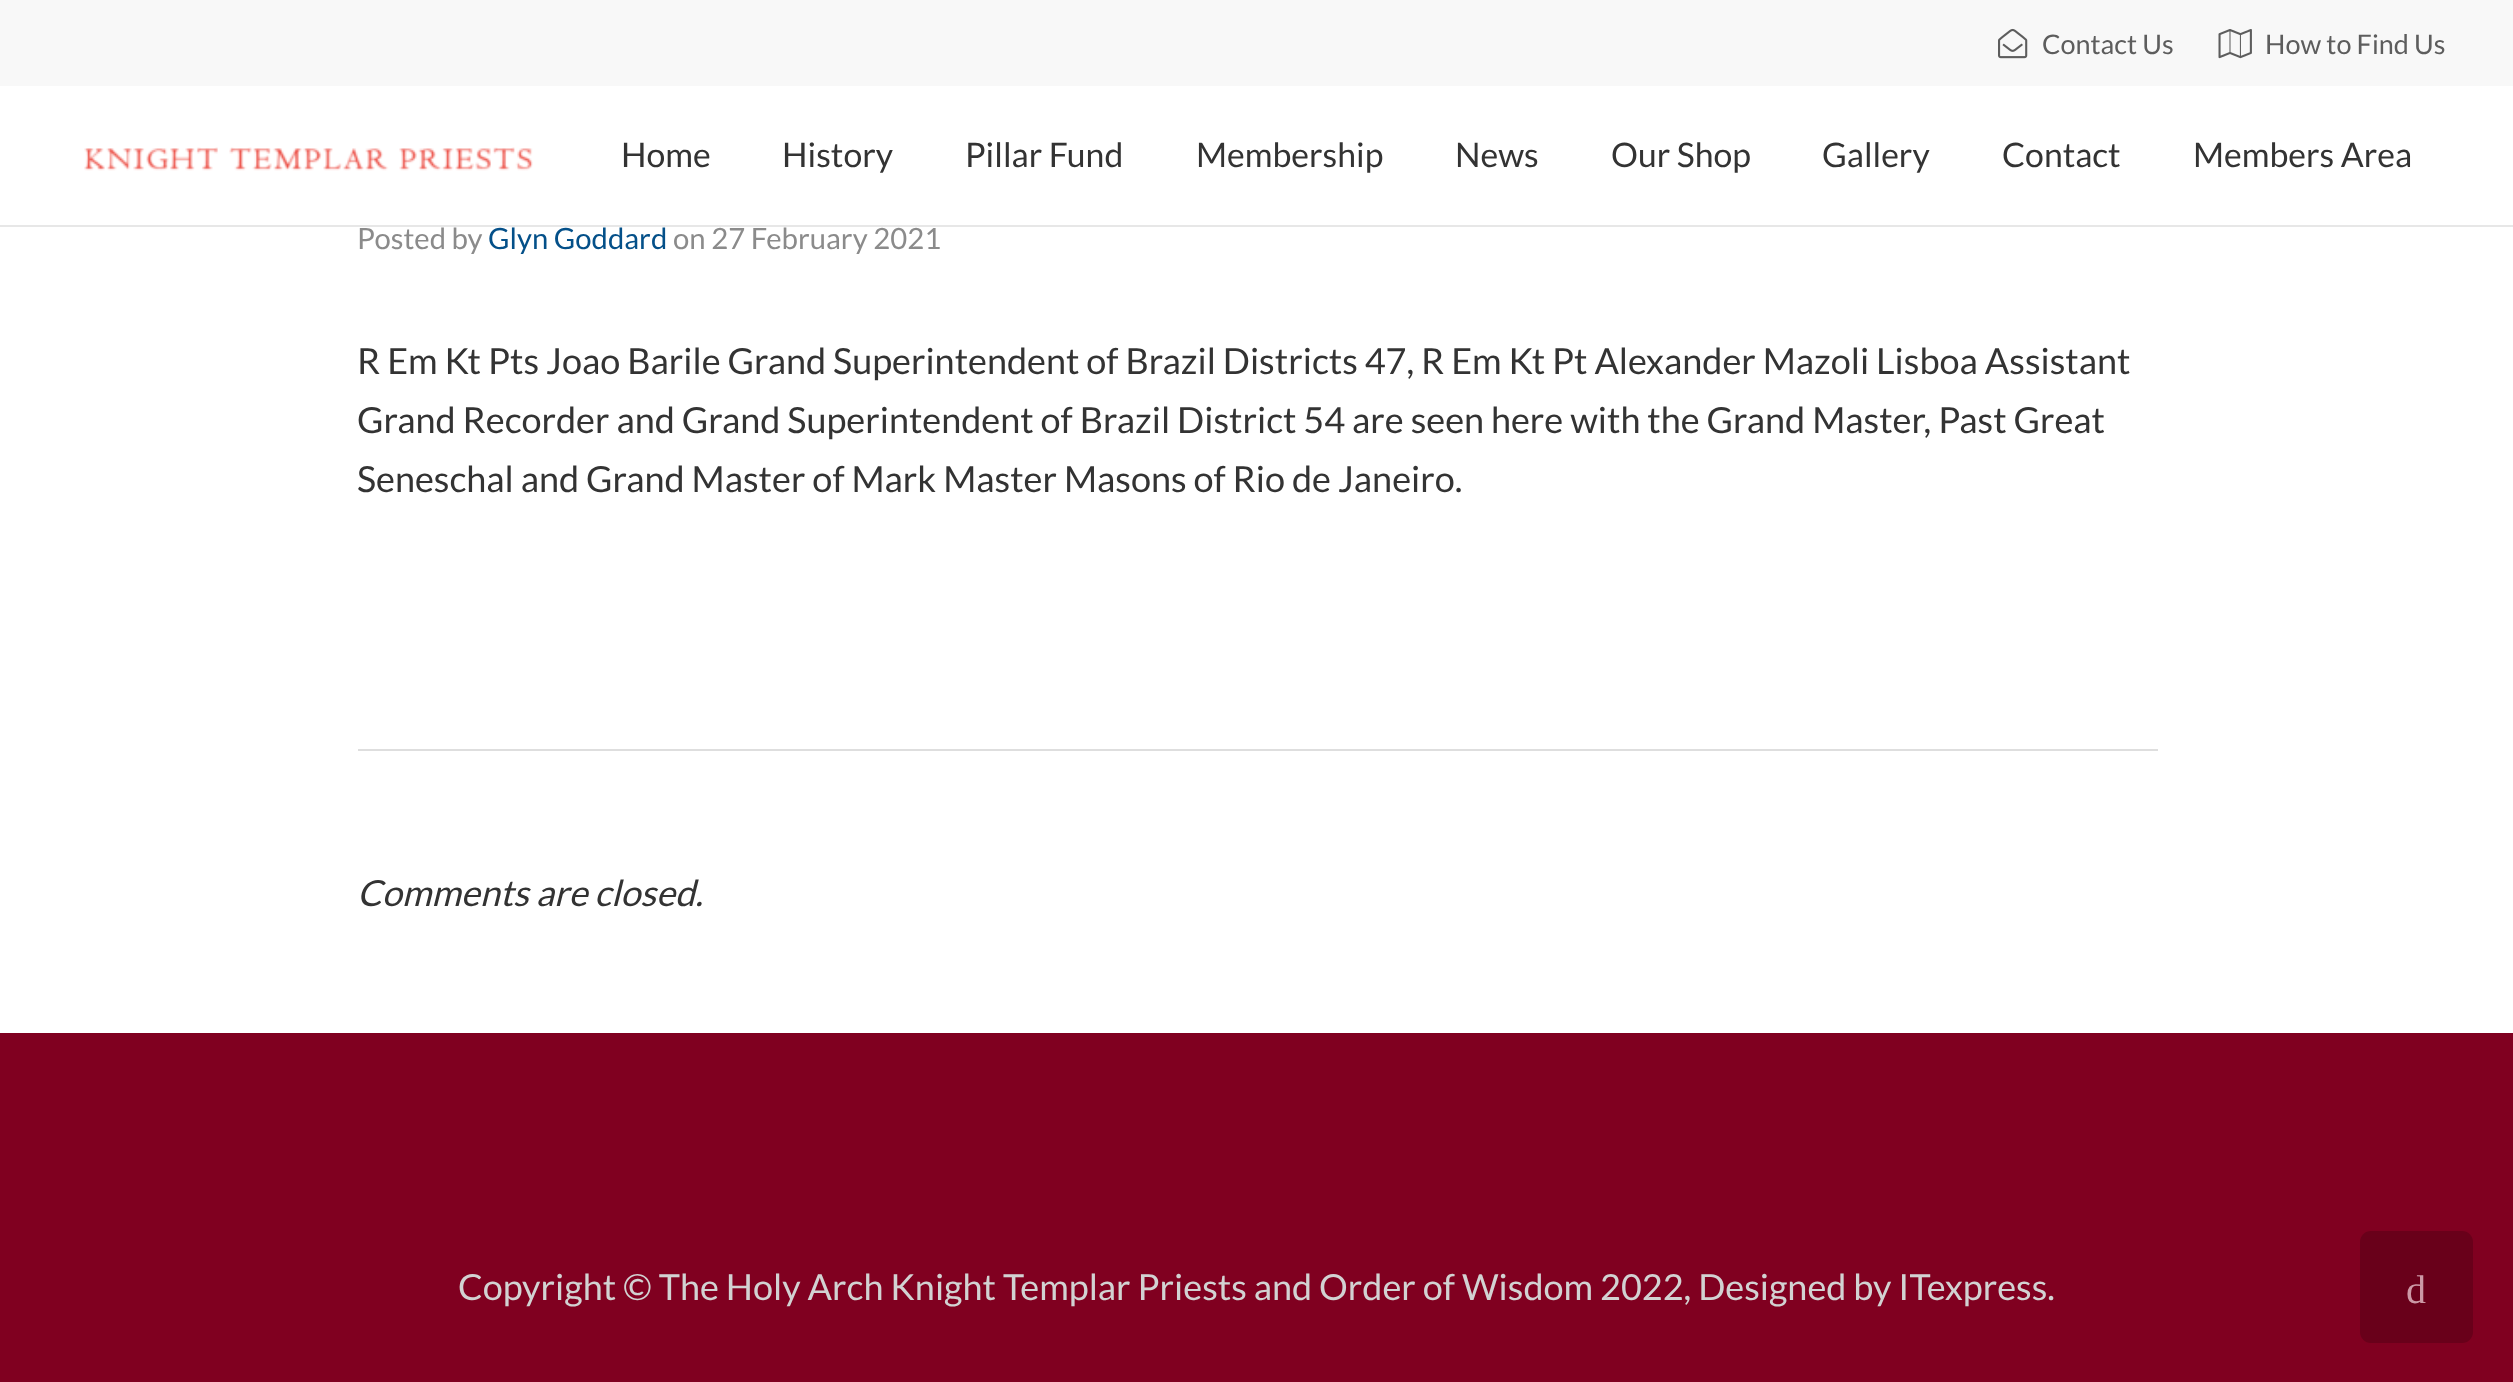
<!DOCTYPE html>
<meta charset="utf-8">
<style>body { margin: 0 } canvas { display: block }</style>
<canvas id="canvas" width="2513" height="1382"></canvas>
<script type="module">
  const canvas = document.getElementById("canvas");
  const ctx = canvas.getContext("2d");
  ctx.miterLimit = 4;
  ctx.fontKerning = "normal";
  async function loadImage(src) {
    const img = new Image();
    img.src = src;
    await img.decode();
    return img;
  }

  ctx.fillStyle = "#ffffff";
  ctx.fillRect(0, 0, 2513, 1382);
  ctx.fillStyle = "#e7e7e7";
  ctx.fillRect(0, 225, 2513, 2);
  ctx.fillStyle = "#f8f8f8";
  ctx.fillRect(0, 0, 2513, 86);
  ctx.drawImage(await loadImage("img1.png"), 1998, 28, 30, 31);
  ctx.font = "27px Lato";
  ctx.fillStyle = "#5d5d5d";
  ctx.fillText("Contact Us", 2042, 54);
  ctx.drawImage(await loadImage("img2.png"), 2218, 29, 34, 30);
  ctx.fillText("How to Find Us", 2265, 54);
  ctx.drawImage(await loadImage("img3.png"), 84, 147, 449, 24);
  ctx.font = "33.75px Lato";
  ctx.fillStyle = "#333333";
  ctx.fillText("Home", 621, 167);
  ctx.fillText("History", 782, 167);
  ctx.fillText("Pillar Fund", 965, 167);
  ctx.fillText("Membership", 1196, 167);
  ctx.fillText("News", 1455, 167);
  ctx.fillText("Our Shop", 1611, 167);
  ctx.fillText("Gallery", 1822, 167);
  ctx.fillText("Contact", 2002, 167);
  ctx.fillText("Members Area", 2193, 167);
  ctx.fillStyle = "#dedede";
  ctx.fillRect(358, 749, 1800, 2);
  ctx.font = "29.25px Lato";
  ctx.fillStyle = "#8b8b8b";
  ctx.fillText("Posted by", 357, 249);
  ctx.fillStyle = "#045089";
  ctx.fillText("Glyn Goddard", 488, 249);
  ctx.fillStyle = "#8b8b8b";
  ctx.fillText("on 27 February 2021", 673, 249);
  ctx.font = "36px Lato";
  ctx.fillStyle = "#333333";
  ctx.fillText("R Em Kt Pts Joao Barile Grand Superintendent of Brazil Districts 47, R Em Kt Pt Alexander Mazoli Lisboa Assistant", 357, 374);
  ctx.fillText("Grand Recorder and Grand Superintendent of Brazil District 54 are seen here with the Grand Master, Past Great", 357, 433);
  ctx.fillText("Seneschal and Grand Master of Mark Master Masons of Rio de Janeiro.", 357, 492);
  ctx.font = "italic 36px Lato";
  ctx.fillText("Comments are closed.", 357, 906);
  ctx.fillStyle = "#800020";
  ctx.fillRect(0, 1033, 2513, 349);
  ctx.font = "36px Lato";
  ctx.fillStyle = "#d2d2d2";
  ctx.fillText("Copyright © The Holy Arch Knight Templar Priests and Order of Wisdom 2022, Designed by ITexpress.", 458, 1300);
  ctx.fillStyle = "#69001a";
  ctx.beginPath();
  ctx.roundRect(2360, 1231, 113, 112, 11);
  ctx.fill();
  ctx.font = "40px Liberation Serif";
  ctx.fillStyle = "#cc99a6";
  ctx.fillText("d", 2406, 1303);
</script>
